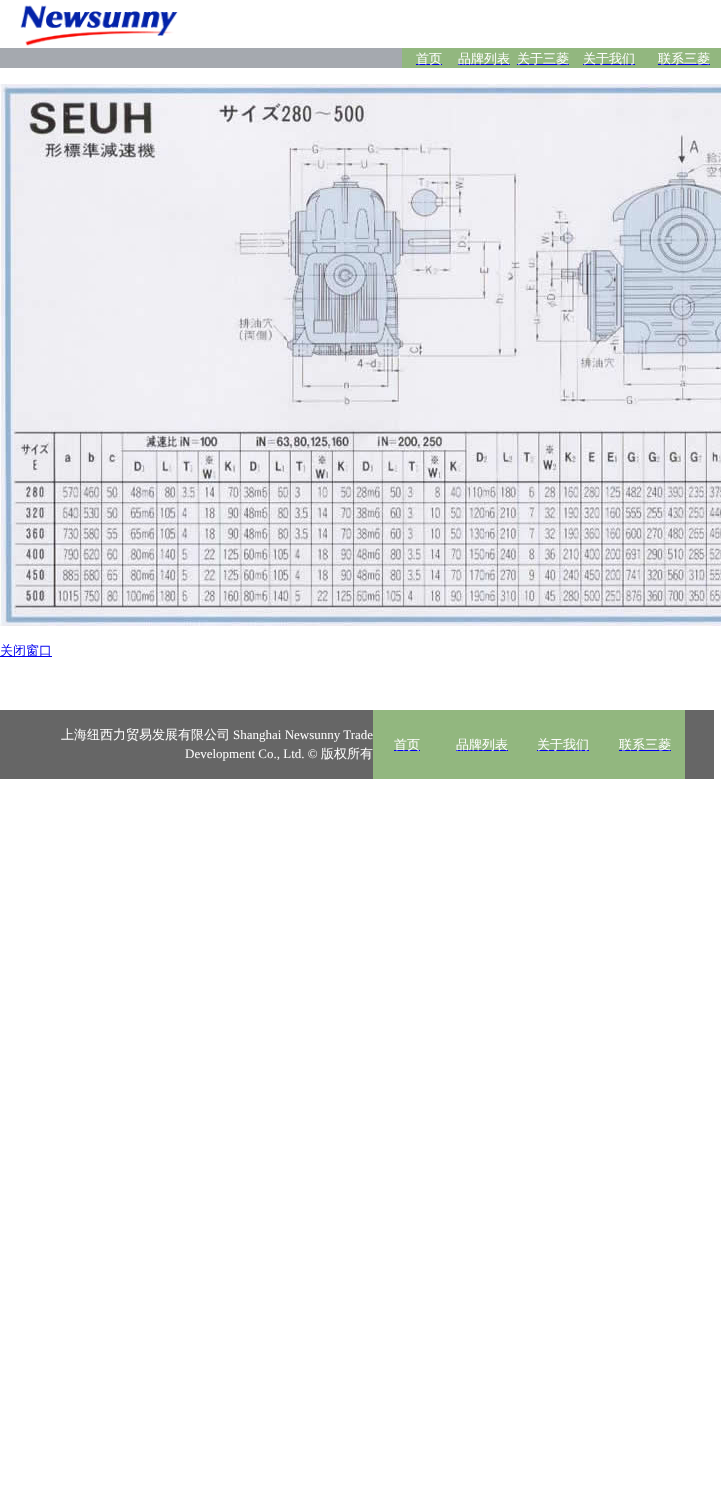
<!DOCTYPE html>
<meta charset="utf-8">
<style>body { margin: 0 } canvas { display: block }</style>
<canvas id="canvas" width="721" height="1503"></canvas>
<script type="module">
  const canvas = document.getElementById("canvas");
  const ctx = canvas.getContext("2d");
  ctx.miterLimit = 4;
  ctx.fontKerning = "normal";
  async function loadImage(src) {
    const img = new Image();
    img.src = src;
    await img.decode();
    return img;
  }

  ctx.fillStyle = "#ffffff";
  ctx.fillRect(0, 0, 721, 1503);
  ctx.drawImage(await loadImage("img1.png"), 20, 5, 158, 41);
  ctx.fillStyle = "#a5a9af";
  ctx.fillRect(0, 48, 402, 20);
  ctx.fillStyle = "#92b77f";
  ctx.fillRect(402, 48, 319, 20);
  ctx.fillStyle = "#0000ee";
  ctx.fillRect(416, 64, 26, 1);
  ctx.font = "500 13px WenQuanYi Zen Hei";
  ctx.fillStyle = "#ffffff";
  ctx.fillText("首页", 416, 63);
  ctx.fillStyle = "#0000ee";
  ctx.fillRect(458, 64, 52, 1);
  ctx.fillStyle = "#ffffff";
  ctx.fillText("品牌列表", 458, 63);
  ctx.fillStyle = "#0000ee";
  ctx.fillRect(517, 64, 52, 1);
  ctx.fillStyle = "#ffffff";
  ctx.fillText("关于三菱", 517, 63);
  ctx.fillStyle = "#0000ee";
  ctx.fillRect(583, 64, 52, 1);
  ctx.fillStyle = "#ffffff";
  ctx.fillText("关于我们", 583, 63);
  ctx.fillStyle = "#0000ee";
  ctx.fillRect(658, 64, 52, 1);
  ctx.fillStyle = "#ffffff";
  ctx.fillText("联系三菱", 658, 63);
  ctx.drawImage(await loadImage("img2.png"), 0, 84, 721, 542);
  ctx.fillStyle = "#0000ee";
  ctx.fillRect(0, 656, 52, 1);
  ctx.fillText("关闭窗口", 0, 655);
  ctx.fillStyle = "#666666";
  ctx.fillRect(0, 710, 714, 69);
  ctx.fillStyle = "#ffffff";
  ctx.fillText("上海纽西力贸易发展有限公司", 61, 739);
  ctx.font = "13px Liberation Serif";
  ctx.fillText("Shanghai Newsunny Trade", 233, 739);
  ctx.fillText("Development Co., Ltd. ©", 185, 758);
  ctx.font = "500 13px WenQuanYi Zen Hei";
  ctx.fillText("版权所有", 321, 758);
  ctx.fillStyle = "#92b77f";
  ctx.fillRect(373, 710, 312, 69);
  ctx.fillStyle = "#0000ee";
  ctx.fillRect(394, 750, 26, 1);
  ctx.fillStyle = "#ffffff";
  ctx.fillText("首页", 394, 749);
  ctx.fillStyle = "#0000ee";
  ctx.fillRect(456, 750, 52, 1);
  ctx.fillStyle = "#ffffff";
  ctx.fillText("品牌列表", 456, 749);
  ctx.fillStyle = "#0000ee";
  ctx.fillRect(537, 750, 52, 1);
  ctx.fillStyle = "#ffffff";
  ctx.fillText("关于我们", 537, 749);
  ctx.fillStyle = "#0000ee";
  ctx.fillRect(619, 750, 52, 1);
  ctx.fillStyle = "#ffffff";
  ctx.fillText("联系三菱", 619, 749);
</script>
